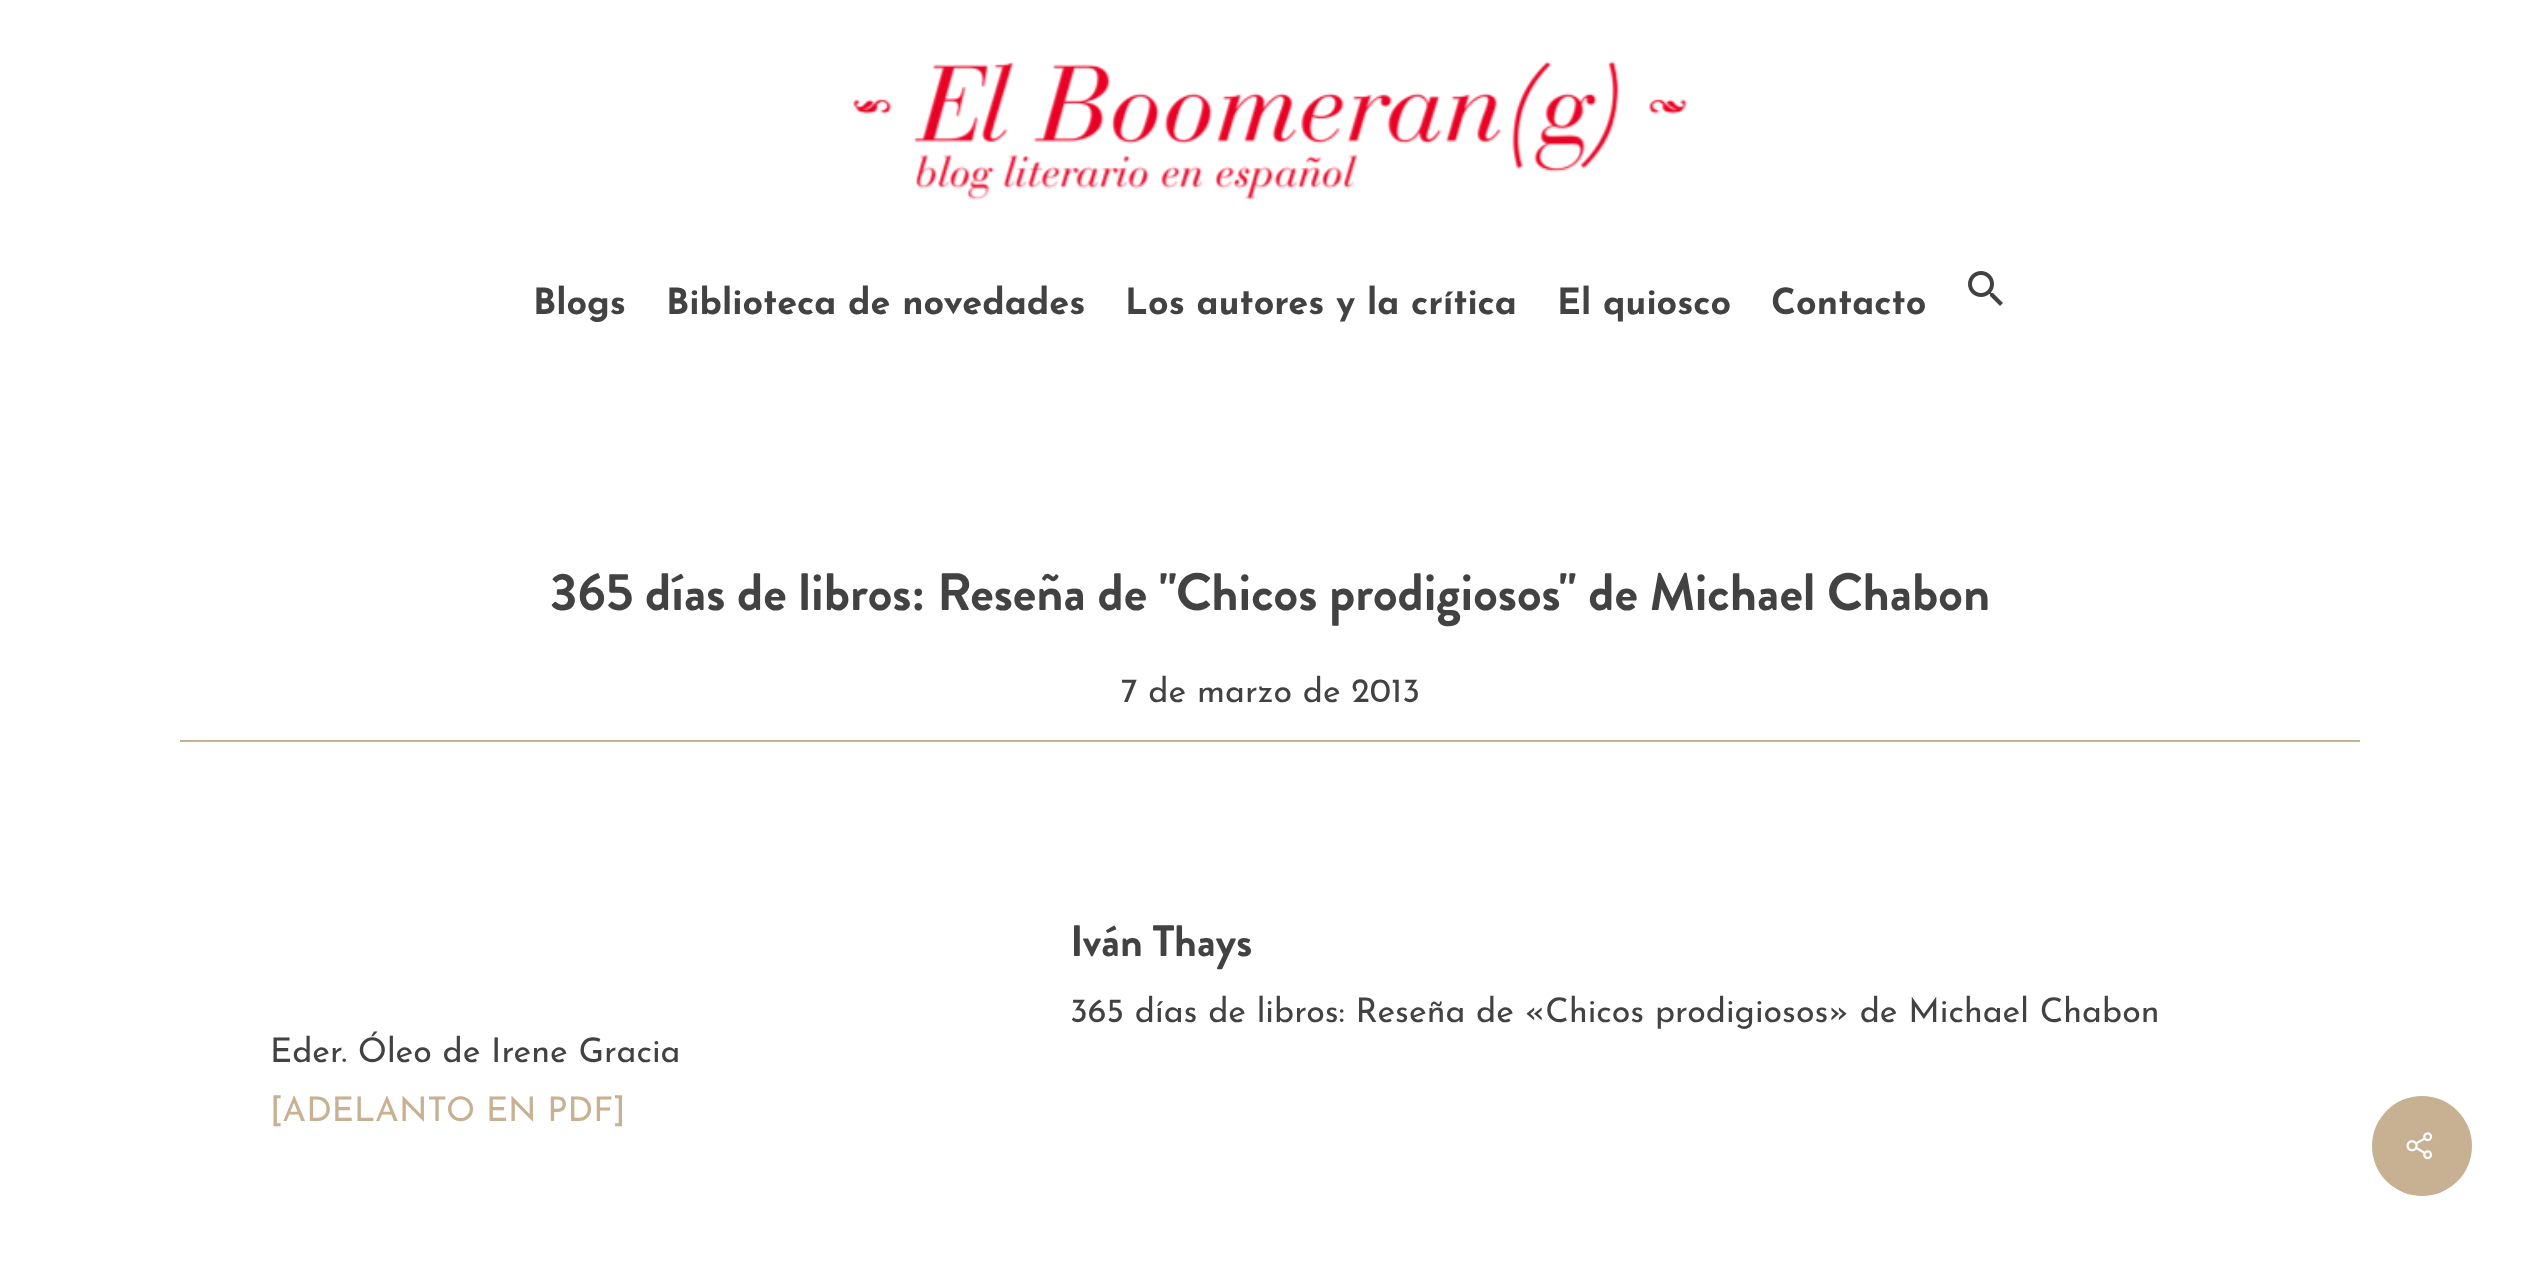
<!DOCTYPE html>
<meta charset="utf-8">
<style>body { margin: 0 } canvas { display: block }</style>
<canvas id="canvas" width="2540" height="1264"></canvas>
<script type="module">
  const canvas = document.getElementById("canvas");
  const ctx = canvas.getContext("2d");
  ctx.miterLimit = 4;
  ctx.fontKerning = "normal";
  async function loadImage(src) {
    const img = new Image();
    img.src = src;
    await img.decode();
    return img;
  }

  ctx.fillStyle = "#ffffff";
  ctx.fillRect(0, 0, 2540, 1264);
  ctx.drawImage(await loadImage("img1.png"), 853, 61, 835, 139);
  ctx.font = "bold 36px Josefin Sans";
  ctx.fillStyle = "#424242";
  ctx.fillText("Blogs", 533, 314);
  ctx.fillText("Biblioteca de novedades", 666, 314);
  ctx.fillText("Los autores y la crítica", 1125, 314);
  ctx.fillText("El quiosco", 1557, 314);
  ctx.fillText("Contacto", 1771, 314);
  ctx.drawImage(await loadImage("img2.png"), 1968, 271, 35, 35);
  ctx.fillStyle = "#c7b192";
  ctx.fillRect(180, 740, 2180, 2);
  ctx.font = "bold 52.5px Brandon Grotesque";
  ctx.fillStyle = "#424242";
  ctx.fillText("365 días de libros: Reseña de \"Chicos prodigiosos\" de Michael Chabon", 550, 610);
  ctx.font = "34px Josefin Sans";
  ctx.fillText("7 de marzo de 2013", 1121, 702);
  ctx.font = "bold 44px Brandon Grotesque";
  ctx.fillText("Iván Thays", 1070, 956);
  ctx.font = "34px Josefin Sans";
  ctx.fillText("365 días de libros: Reseña de «Chicos prodigiosos» de Michael Chabon", 1070, 1022);
  ctx.fillStyle = "#c7b192";
  ctx.fillText("[ADELANTO EN PDF]", 270, 1121);
  ctx.fillStyle = "#424242";
  ctx.fillText("Eder. Óleo de Irene Gracia", 270, 1062);
  ctx.fillStyle = "#c7b192";
  ctx.beginPath();
  ctx.arc(2422, 1146, 50, 0, Math.PI * 2);
  ctx.fill();
  ctx.drawImage(await loadImage("img3.png"), 2406, 1132, 27, 28);
</script>
